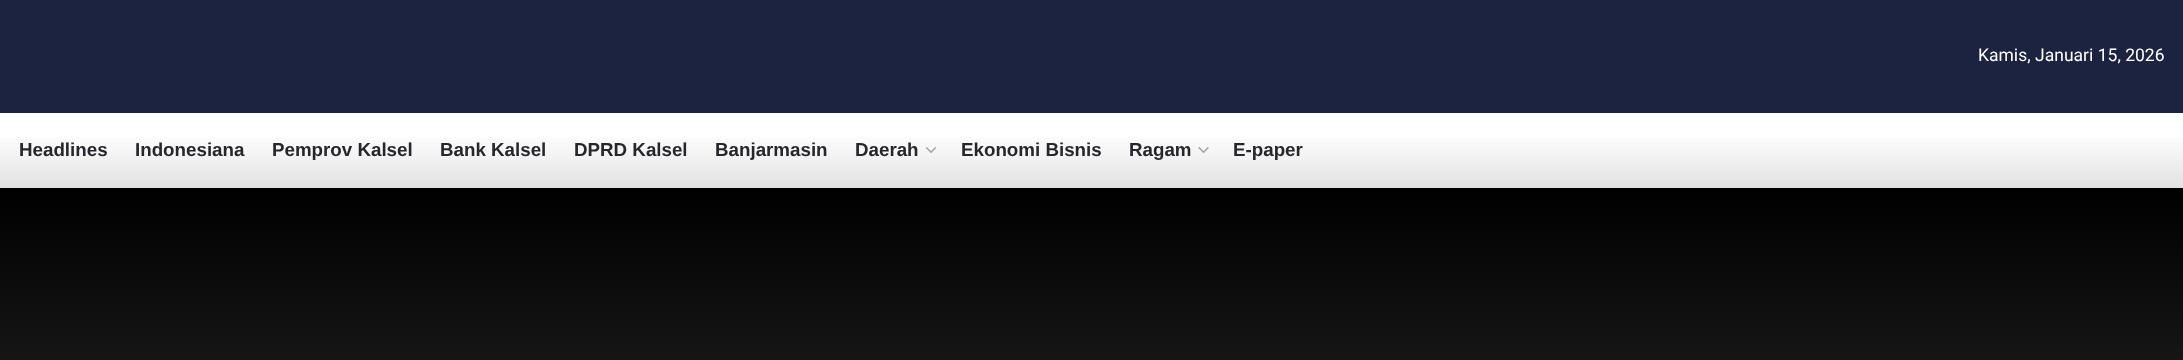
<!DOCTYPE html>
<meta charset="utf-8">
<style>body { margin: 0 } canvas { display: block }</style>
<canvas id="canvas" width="2183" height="360"></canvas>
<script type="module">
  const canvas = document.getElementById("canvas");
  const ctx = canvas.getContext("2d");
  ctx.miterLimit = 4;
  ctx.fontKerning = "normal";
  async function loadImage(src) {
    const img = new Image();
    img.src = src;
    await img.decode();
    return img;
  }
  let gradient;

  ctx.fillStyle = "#ffffff";
  ctx.fillRect(0, 0, 2183, 360);
  ctx.fillStyle = "#1c2341";
  ctx.fillRect(0, 0, 2183, 113);
  ctx.font = "17.5px Heebo";
  ctx.fillStyle = "#ffffff";
  ctx.fillText("Kamis, Januari 15, 2026", 1978, 61);
  gradient = ctx.createLinearGradient(1092, 188, 1092, 113);
  gradient.addColorStop(0, "#e2e2e2");
  gradient.addColorStop(0.75, "#ffffff");
  ctx.fillStyle = gradient;
  ctx.fillRect(0, 137, 2183, 51);
  ctx.font = "bold 18.75px Liberation Sans";
  ctx.fillStyle = "#28262c";
  ctx.fillText("Headlines", 19, 156);
  ctx.fillText("Indonesiana", 135, 156);
  ctx.fillText("Pemprov Kalsel", 272, 156);
  ctx.fillText("Bank Kalsel", 440, 156);
  ctx.fillText("DPRD Kalsel", 574, 156);
  ctx.fillText("Banjarmasin", 715, 156);
  ctx.fillText("Daerah", 855, 156);
  ctx.drawImage(await loadImage("img1.png"), 925, 147, 12, 6);
  ctx.fillText("Ekonomi Bisnis", 961, 156);
  ctx.fillText("Ragam", 1129, 156);
  ctx.drawImage(await loadImage("img2.png"), 1198, 147, 11, 6);
  ctx.fillText("E-paper", 1233, 156);
  gradient = ctx.createLinearGradient(1092, 187, 1092, 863);
  gradient.addColorStop(0, "#000000");
  gradient.addColorStop(1, "#545454");
  ctx.fillStyle = gradient;
  ctx.fillRect(0, 188, 2183, 172);
</script>
